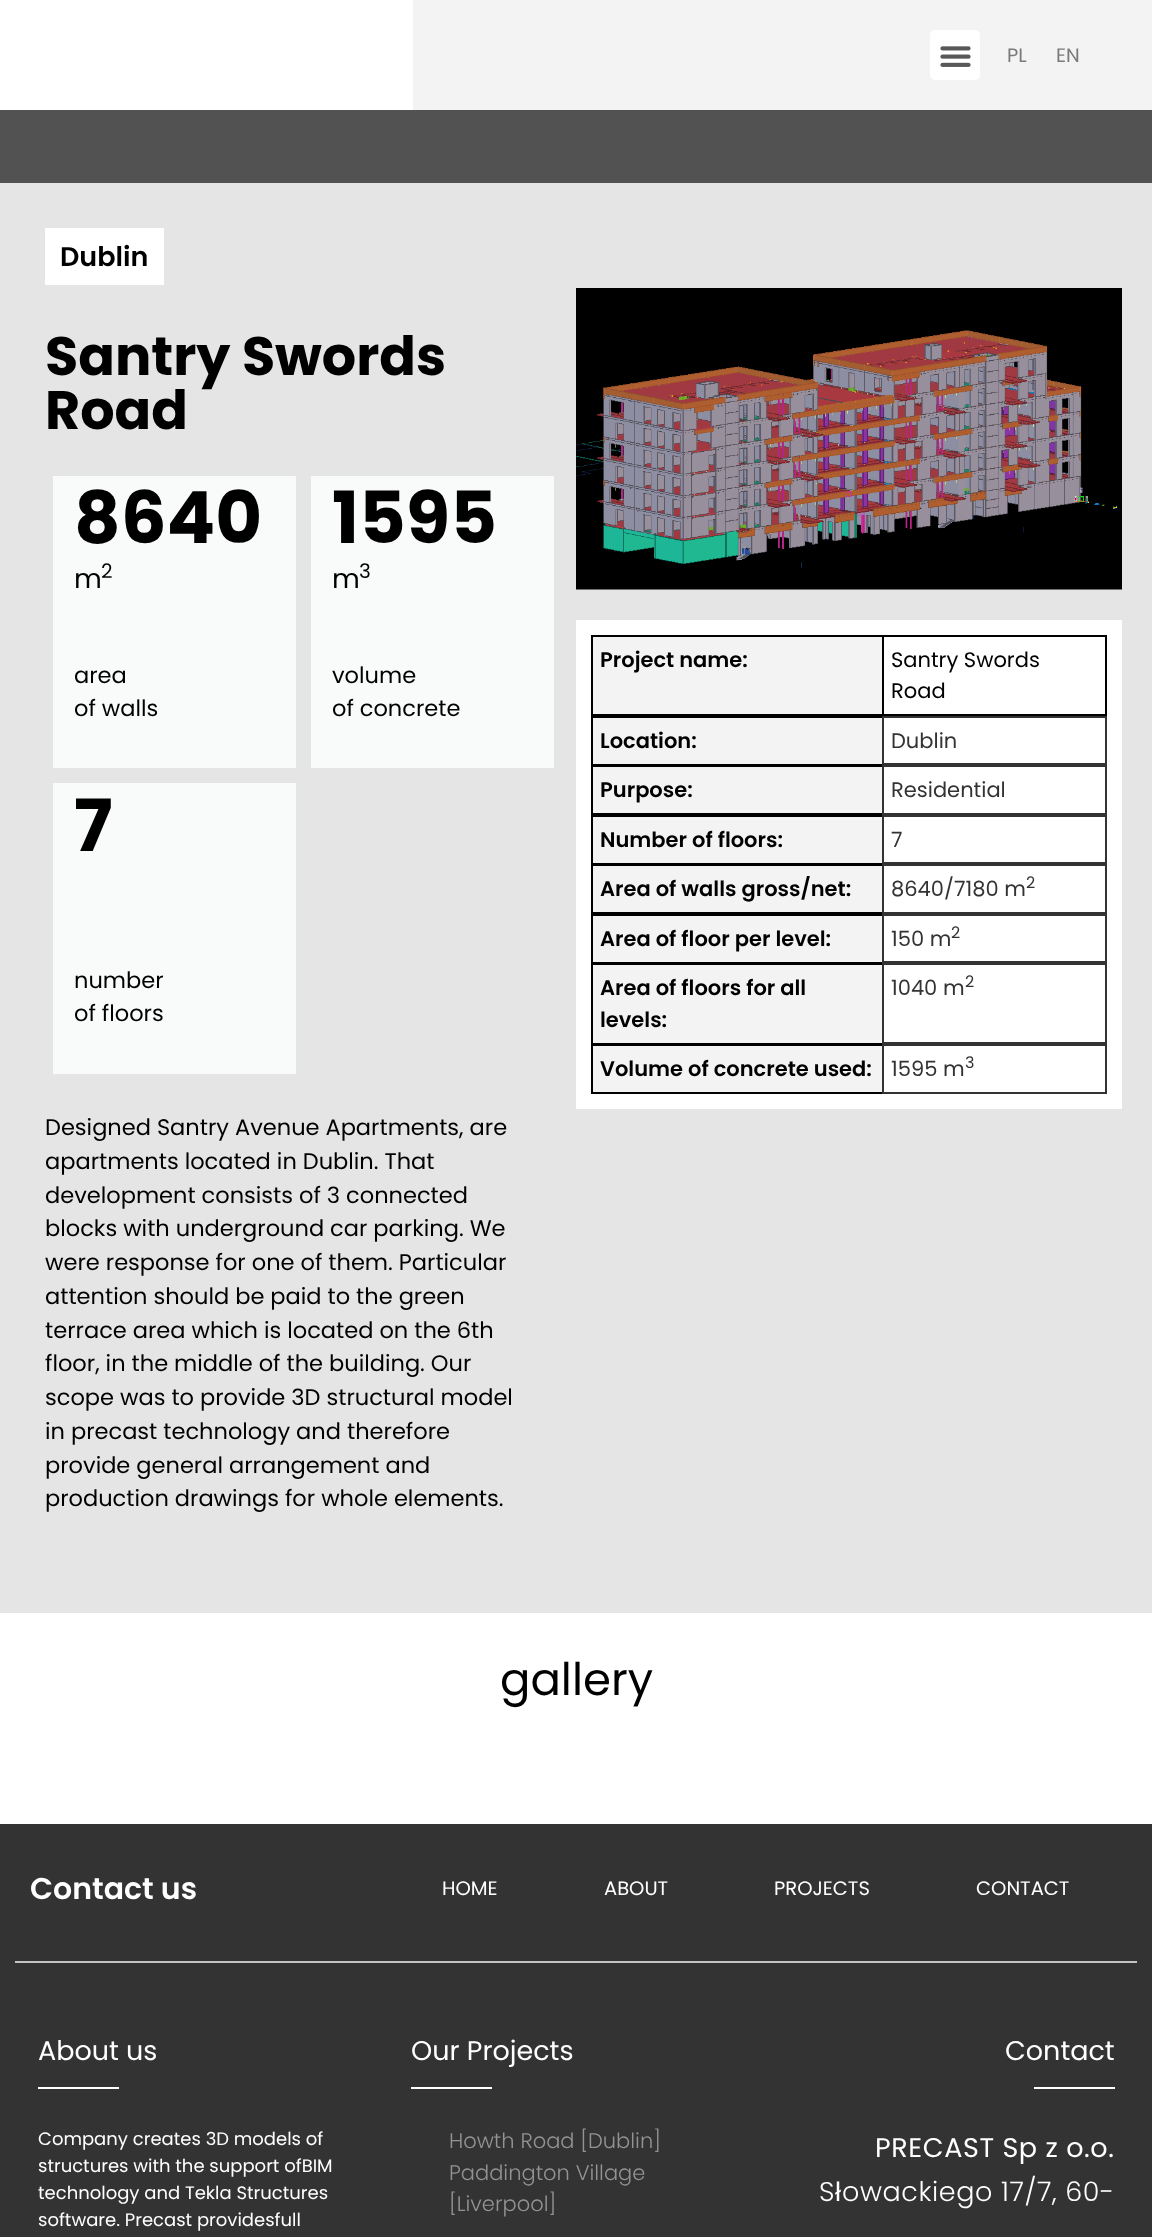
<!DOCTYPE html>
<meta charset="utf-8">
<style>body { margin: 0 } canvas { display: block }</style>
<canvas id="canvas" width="1152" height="2237"></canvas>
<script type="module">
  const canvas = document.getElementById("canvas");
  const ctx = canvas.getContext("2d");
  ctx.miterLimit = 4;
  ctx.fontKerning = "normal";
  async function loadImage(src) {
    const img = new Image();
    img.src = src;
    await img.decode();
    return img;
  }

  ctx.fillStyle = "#ffffff";
  ctx.fillRect(0, 0, 1152, 2237);
  ctx.fillStyle = "#f3f3f3";
  ctx.fillRect(413, 0, 739, 110);
  ctx.fillStyle = "#ffffff";
  ctx.beginPath();
  ctx.roundRect(930, 30, 50, 50, 5);
  ctx.fill();
  ctx.drawImage(await loadImage("img1.png"), 940, 46, 31, 21);
  ctx.font = "19.5px Poppins";
  ctx.fillStyle = "#7a7a7a";
  ctx.fillText("PL", 1007, 62);
  ctx.fillText("EN", 1056, 62);
  ctx.fillStyle = "#525252";
  ctx.fillRect(0, 110, 1152, 73);
  ctx.fillStyle = "#e5e5e5";
  ctx.fillRect(0, 183, 1152, 1430);
  ctx.fillStyle = "#ffffff";
  ctx.fillRect(45, 228, 119, 57);
  ctx.font = "600 27px Poppins";
  ctx.fillStyle = "#000000";
  ctx.fillText("Dublin", 60, 266);
  ctx.font = "bold 54px Poppins";
  ctx.fillText("Santry Swords", 45, 375);
  ctx.fillText("Road", 45, 429);
  ctx.fillStyle = "#f9fafa";
  ctx.fillRect(53, 476, 243, 292);
  ctx.font = "bold 72px Poppins";
  ctx.fillStyle = "#000000";
  ctx.fillText("8640", 74, 543);
  ctx.font = "20px Poppins";
  ctx.fillText("2", 101, 578);
  ctx.font = "27px Poppins";
  ctx.fillText("m", 74, 588);
  ctx.font = "22.5px Poppins";
  ctx.fillText("area", 74, 683);
  ctx.fillText("of walls", 74, 716);
  ctx.fillStyle = "#f9fafa";
  ctx.fillRect(311, 476, 243, 292);
  ctx.font = "bold 72px Poppins";
  ctx.fillStyle = "#000000";
  ctx.fillText("1595", 332, 543);
  ctx.font = "27px Poppins";
  ctx.fillText("m", 332, 588);
  ctx.font = "20px Poppins";
  ctx.fillText("3", 359, 578);
  ctx.font = "22.5px Poppins";
  ctx.fillText("volume", 332, 683);
  ctx.fillText("of concrete", 332, 716);
  ctx.fillStyle = "#f9fafa";
  ctx.fillRect(53, 783, 243, 291);
  ctx.font = "bold 72px Poppins";
  ctx.fillStyle = "#000000";
  ctx.fillText("7", 74, 851);
  ctx.font = "22.5px Poppins";
  ctx.fillText("number", 74, 988);
  ctx.fillText("of floors", 74, 1021);
  ctx.fillText("Designed Santry Avenue Apartments, are", 45, 1135);
  ctx.fillText("apartments located in Dublin. That", 45, 1169);
  ctx.fillText("development consists of 3 connected", 45, 1203);
  ctx.fillText("blocks with underground car parking. We", 45, 1236);
  ctx.fillText("were response for one of them. Particular", 45, 1270);
  ctx.fillText("attention should be paid to the green", 45, 1304);
  ctx.fillText("terrace area which is located on the 6th", 45, 1338);
  ctx.fillText("floor, in the middle of the building. Our", 45, 1371);
  ctx.fillText("scope was to provide 3D structural model", 45, 1405);
  ctx.fillText("in precast technology and therefore", 45, 1439);
  ctx.fillText("provide general arrangement and", 45, 1473);
  ctx.fillText("production drawings for whole elements.", 45, 1506);
  ctx.drawImage(await loadImage("img2.png"), 576, 288, 546, 302);
  ctx.fillStyle = "#ffffff";
  ctx.fillRect(576, 620, 546, 489);
  ctx.fillStyle = "#f3f3f3";
  ctx.fillRect(593, 637, 289, 77);
  ctx.fillStyle = "#000000";
  ctx.fillRect(591, 635, 291, 2);
  ctx.fillRect(591, 714, 291, 4);
  ctx.fillRect(591, 635, 2, 81);
  ctx.font = "600 21px Poppins";
  ctx.fillText("Project name:", 600, 667);
  ctx.strokeStyle = "#000000";
  ctx.lineWidth = 2;
  ctx.strokeRect(883, 636, 223, 79);
  ctx.font = "21px Poppins";
  ctx.fillText("Santry Swords", 891, 667);
  ctx.fillText("Road", 891, 698);
  ctx.fillStyle = "#f3f3f3";
  ctx.fillRect(593, 718, 289, 46);
  ctx.fillStyle = "#000000";
  ctx.fillRect(591, 764, 291, 3);
  ctx.fillRect(591, 716, 2, 49);
  ctx.font = "600 21px Poppins";
  ctx.fillText("Location:", 600, 748);
  ctx.strokeStyle = "#333333";
  ctx.strokeRect(883, 717, 223, 47);
  ctx.font = "21px Poppins";
  ctx.fillStyle = "#333333";
  ctx.fillText("Dublin", 891, 748);
  ctx.fillStyle = "#f3f3f3";
  ctx.fillRect(593, 767, 289, 46);
  ctx.fillStyle = "#000000";
  ctx.fillRect(591, 813, 291, 4);
  ctx.fillRect(591, 765, 2, 50);
  ctx.font = "600 21px Poppins";
  ctx.fillText("Purpose:", 600, 797);
  ctx.strokeRect(883, 766, 223, 48);
  ctx.font = "21px Poppins";
  ctx.fillStyle = "#333333";
  ctx.fillText("Residential", 891, 797);
  ctx.fillStyle = "#f3f3f3";
  ctx.fillRect(593, 817, 289, 46);
  ctx.fillStyle = "#000000";
  ctx.fillRect(591, 863, 291, 3);
  ctx.fillRect(591, 815, 2, 49);
  ctx.font = "600 21px Poppins";
  ctx.fillText("Number of floors:", 600, 847);
  ctx.strokeRect(883, 816, 223, 47);
  ctx.font = "21px Poppins";
  ctx.fillStyle = "#333333";
  ctx.fillText("7", 891, 847);
  ctx.fillStyle = "#f3f3f3";
  ctx.fillRect(593, 866, 289, 46);
  ctx.fillStyle = "#000000";
  ctx.fillRect(591, 912, 291, 4);
  ctx.fillRect(591, 864, 2, 50);
  ctx.font = "600 21px Poppins";
  ctx.fillText("Area of walls gross/net:", 600, 896);
  ctx.strokeRect(883, 865, 223, 48);
  ctx.font = "21px Poppins";
  ctx.fillStyle = "#333333";
  ctx.fillText("8640/7180 m", 891, 896);
  ctx.font = "16px Poppins";
  ctx.fillText("2", 1026, 888);
  ctx.fillStyle = "#f3f3f3";
  ctx.fillRect(593, 916, 289, 46);
  ctx.fillStyle = "#000000";
  ctx.fillRect(591, 962, 291, 3);
  ctx.fillRect(591, 914, 2, 49);
  ctx.font = "600 21px Poppins";
  ctx.fillText("Area of floor per level:", 600, 946);
  ctx.strokeRect(883, 915, 223, 47);
  ctx.font = "21px Poppins";
  ctx.fillStyle = "#333333";
  ctx.fillText("150 m", 891, 946);
  ctx.font = "16px Poppins";
  ctx.fillText("2", 951, 938);
  ctx.fillStyle = "#f3f3f3";
  ctx.fillRect(593, 965, 289, 78);
  ctx.fillStyle = "#000000";
  ctx.fillRect(591, 1043, 291, 3);
  ctx.fillRect(591, 963, 2, 81);
  ctx.font = "600 21px Poppins";
  ctx.fillText("Area of floors for all", 600, 995);
  ctx.fillText("levels:", 600, 1027);
  ctx.strokeRect(883, 964, 223, 79);
  ctx.font = "21px Poppins";
  ctx.fillStyle = "#333333";
  ctx.fillText("1040 m", 891, 995);
  ctx.font = "16px Poppins";
  ctx.fillText("2", 965, 987);
  ctx.fillStyle = "#f3f3f3";
  ctx.fillRect(593, 1046, 289, 46);
  ctx.fillStyle = "#000000";
  ctx.fillRect(591, 1092, 291, 2);
  ctx.fillRect(591, 1044, 2, 50);
  ctx.font = "600 21px Poppins";
  ctx.fillText("Volume of concrete used:", 600, 1076);
  ctx.strokeRect(883, 1045, 223, 48);
  ctx.font = "21px Poppins";
  ctx.fillStyle = "#333333";
  ctx.fillText("1595 m", 891, 1076);
  ctx.font = "16px Poppins";
  ctx.fillText("3", 965, 1068);
  ctx.font = "45px Poppins";
  ctx.fillStyle = "#000000";
  ctx.fillText("gallery", 500, 1695);
  ctx.fillStyle = "#333333";
  ctx.fillRect(0, 1824, 1152, 413);
  ctx.font = "600 30px Poppins";
  ctx.fillStyle = "#ffffff";
  ctx.fillText("Contact us", 30, 1899);
  ctx.font = "19.5px Poppins";
  ctx.fillText("HOME", 442, 1895);
  ctx.fillText("ABOUT", 604, 1895);
  ctx.fillText("PROJECTS", 774, 1895);
  ctx.fillText("CONTACT", 976, 1895);
  ctx.fillStyle = "#c4c4c4";
  ctx.fillRect(15, 1961, 1122, 2);
  ctx.font = "27px Poppins";
  ctx.fillStyle = "#ffffff";
  ctx.fillText("About us", 38, 2060);
  ctx.fillRect(38, 2087, 81, 2);
  ctx.font = "18px Poppins";
  ctx.fillText("Company creates 3D models of", 38, 2145);
  ctx.fillText("structures with the support ofBIM", 38, 2172);
  ctx.fillText("technology and Tekla Structures", 38, 2199);
  ctx.fillText("software. Precast providesfull", 38, 2226);
  ctx.font = "27px Poppins";
  ctx.fillText("Our Projects", 411, 2060);
  ctx.fillRect(411, 2087, 81, 2);
  ctx.font = "300 21px Poppins";
  ctx.fillStyle = "#939393";
  ctx.fillText("Howth Road [Dublin]", 449, 2148);
  ctx.fillText("Paddington Village", 449, 2180);
  ctx.fillText("[Liverpool]", 449, 2211);
  ctx.font = "27px Poppins";
  ctx.fillStyle = "#ffffff";
  ctx.fillText("Contact", 1005, 2060);
  ctx.fillRect(1034, 2087, 81, 2);
  ctx.letterSpacing = "0.6px";
  ctx.fillText("PRECAST Sp z o.o.", 875, 2157);
  ctx.font = "300 27px Poppins";
  ctx.fillText("S", 819, 2201);
  ctx.font = "27px Liberation Sans";
  ctx.fillText("ł", 835, 2201);
  ctx.font = "300 27px Poppins";
  ctx.fillText("owackiego 17/7, 60-", 842, 2201);
</script>
